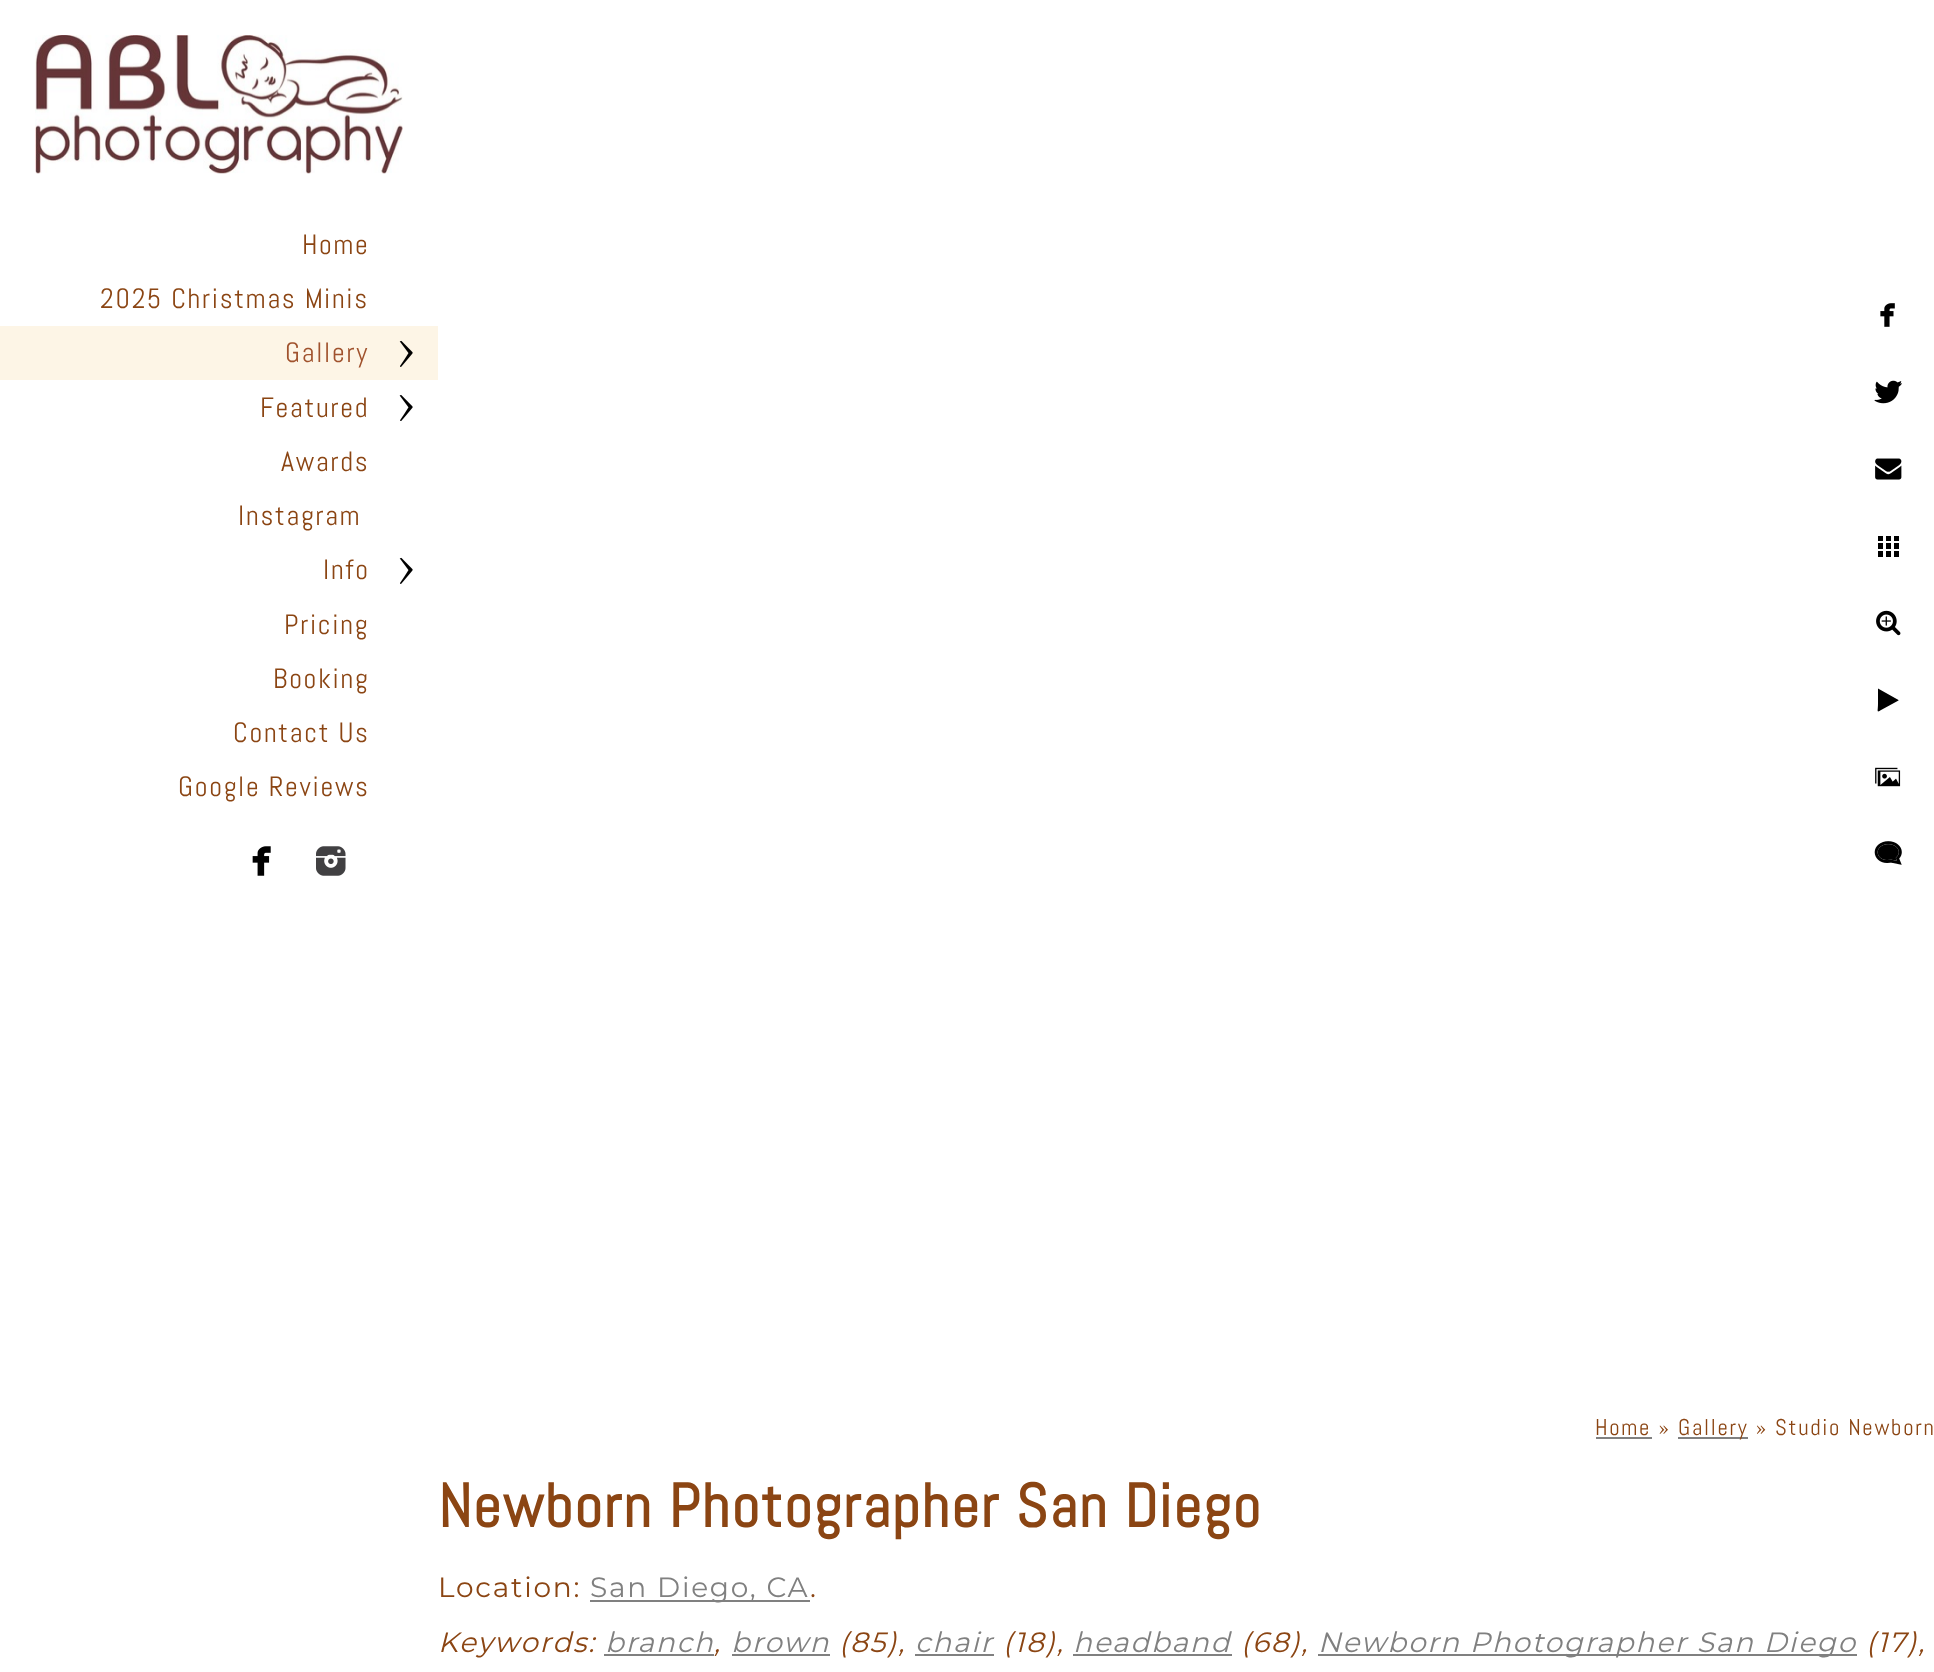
<!DOCTYPE html>
<meta charset="utf-8">
<style>body { margin: 0 } canvas { display: block }</style>
<canvas id="canvas" width="1934" height="1672"></canvas>
<script type="module">
  const canvas = document.getElementById("canvas");
  const ctx = canvas.getContext("2d");
  ctx.miterLimit = 4;
  ctx.fontKerning = "normal";
  async function loadImage(src) {
    const img = new Image();
    img.src = src;
    await img.decode();
    return img;
  }

  ctx.fillStyle = "#ffffff";
  ctx.fillRect(0, 0, 1934, 1672);
  ctx.drawImage(await loadImage("img1.png"), 35, 35, 368, 139);
  ctx.letterSpacing = "1.75px";
  ctx.font = "28px Abel";
  ctx.fillStyle = "#8b4513";
  ctx.fillText("Home", 302, 254);
  ctx.fillText("2025 Christmas Minis", 100, 308);
  ctx.fillStyle = "#fdf5e6";
  ctx.fillRect(0, 326, 438, 54);
  ctx.fillStyle = "#a0522d";
  ctx.fillText("Gallery", 285, 362);
  ctx.drawImage(await loadImage("img2.png"), 399, 340, 14, 27);
  ctx.fillStyle = "#8b4513";
  ctx.fillText("Featured", 260, 417);
  ctx.drawImage(await loadImage("img3.png"), 399, 395, 14, 26);
  ctx.fillText("Awards", 281, 471);
  ctx.fillText("Instagram", 238, 525);
  ctx.fillText("Info", 323, 579);
  ctx.drawImage(await loadImage("img4.png"), 399, 557, 14, 27);
  ctx.fillText("Pricing", 284, 634);
  ctx.fillText("Booking", 273, 688);
  ctx.fillText("Contact Us", 233, 742);
  ctx.fillText("Google Reviews", 178, 796);
  ctx.drawImage(await loadImage("img5.png"), 252, 846, 19, 30);
  ctx.drawImage(await loadImage("img6.png"), 316, 846, 30, 30);
  ctx.drawImage(await loadImage("img7.png"), 1880, 303, 15, 24);
  ctx.drawImage(await loadImage("img8.png"), 1874, 380, 28, 24);
  ctx.drawImage(await loadImage("img9.png"), 1875, 458, 27, 22);
  ctx.drawImage(await loadImage("img10.png"), 1878, 536, 21, 21);
  ctx.drawImage(await loadImage("img11.png"), 1876, 610, 25, 26);
  ctx.fillStyle = "#000000";
  ctx.beginPath();
  ctx.moveTo(1898.5, 700.5);
  ctx.lineTo(1882, 709.5);
  ctx.bezierCurveTo(1876, 713, 1878, 712, 1878, 703.5);
  ctx.lineTo(1878, 689);
  ctx.lineTo(1878, 688.5);
  ctx.lineTo(1898.5, 700);
  ctx.closePath();
  ctx.fill();
  ctx.drawImage(await loadImage("img12.png"), 1875, 767, 26, 20);
  ctx.drawImage(await loadImage("img13.png"), 1874, 841, 28, 24);
  ctx.font = "22.75px Abel";
  ctx.fillStyle = "#8b4513";
  ctx.fillText("Home »", 1595, 1435);
  ctx.fillStyle = "#808080";
  ctx.fillRect(1596, 1437, 56, 2);
  ctx.fillRect(1678, 1437, 70, 2);
  ctx.fillStyle = "#8b4513";
  ctx.fillText("Gallery » Studio Newborn", 1678, 1435);
  ctx.font = "bold 61.25px Abel";
  ctx.fillText("Newborn Photographer San Diego", 438, 1527);
  ctx.font = "100 28px Montserrat";
  ctx.fillText("Location:", 438, 1597);
  ctx.fillStyle = "#808080";
  ctx.fillRect(590, 1600, 220, 2);
  ctx.fillText("San Diego, CA", 590, 1597);
  ctx.fillStyle = "#8b4513";
  ctx.fillText(".", 810, 1597);
  ctx.font = "italic 100 28px Montserrat";
  ctx.fillText("Keywords:", 438, 1652);
  ctx.fillStyle = "#808080";
  ctx.fillText("branch", 605, 1652);
  ctx.fillStyle = "#8b4513";
  ctx.fillText(",", 714, 1652);
  ctx.fillStyle = "#808080";
  ctx.fillRect(604, 1654, 110, 2);
  ctx.fillRect(732, 1654, 98, 2);
  ctx.fillText("brown", 731, 1652);
  ctx.fillStyle = "#8b4513";
  ctx.fillText("(85),", 839, 1652);
  ctx.fillStyle = "#808080";
  ctx.fillText("chair", 915, 1652);
  ctx.fillRect(915, 1654, 79, 2);
  ctx.fillStyle = "#8b4513";
  ctx.fillText("(18),", 1003, 1652);
  ctx.fillStyle = "#808080";
  ctx.fillText("headband", 1073, 1652);
  ctx.fillRect(1073, 1654, 159, 2);
  ctx.fillStyle = "#8b4513";
  ctx.fillText("(68),", 1241, 1652);
  ctx.fillStyle = "#808080";
  ctx.fillRect(1318, 1654, 539, 2);
  ctx.fillText("Newborn Photographer San Diego", 1318, 1652);
  ctx.fillStyle = "#8b4513";
  ctx.fillText("(17),", 1866, 1652);
</script>
